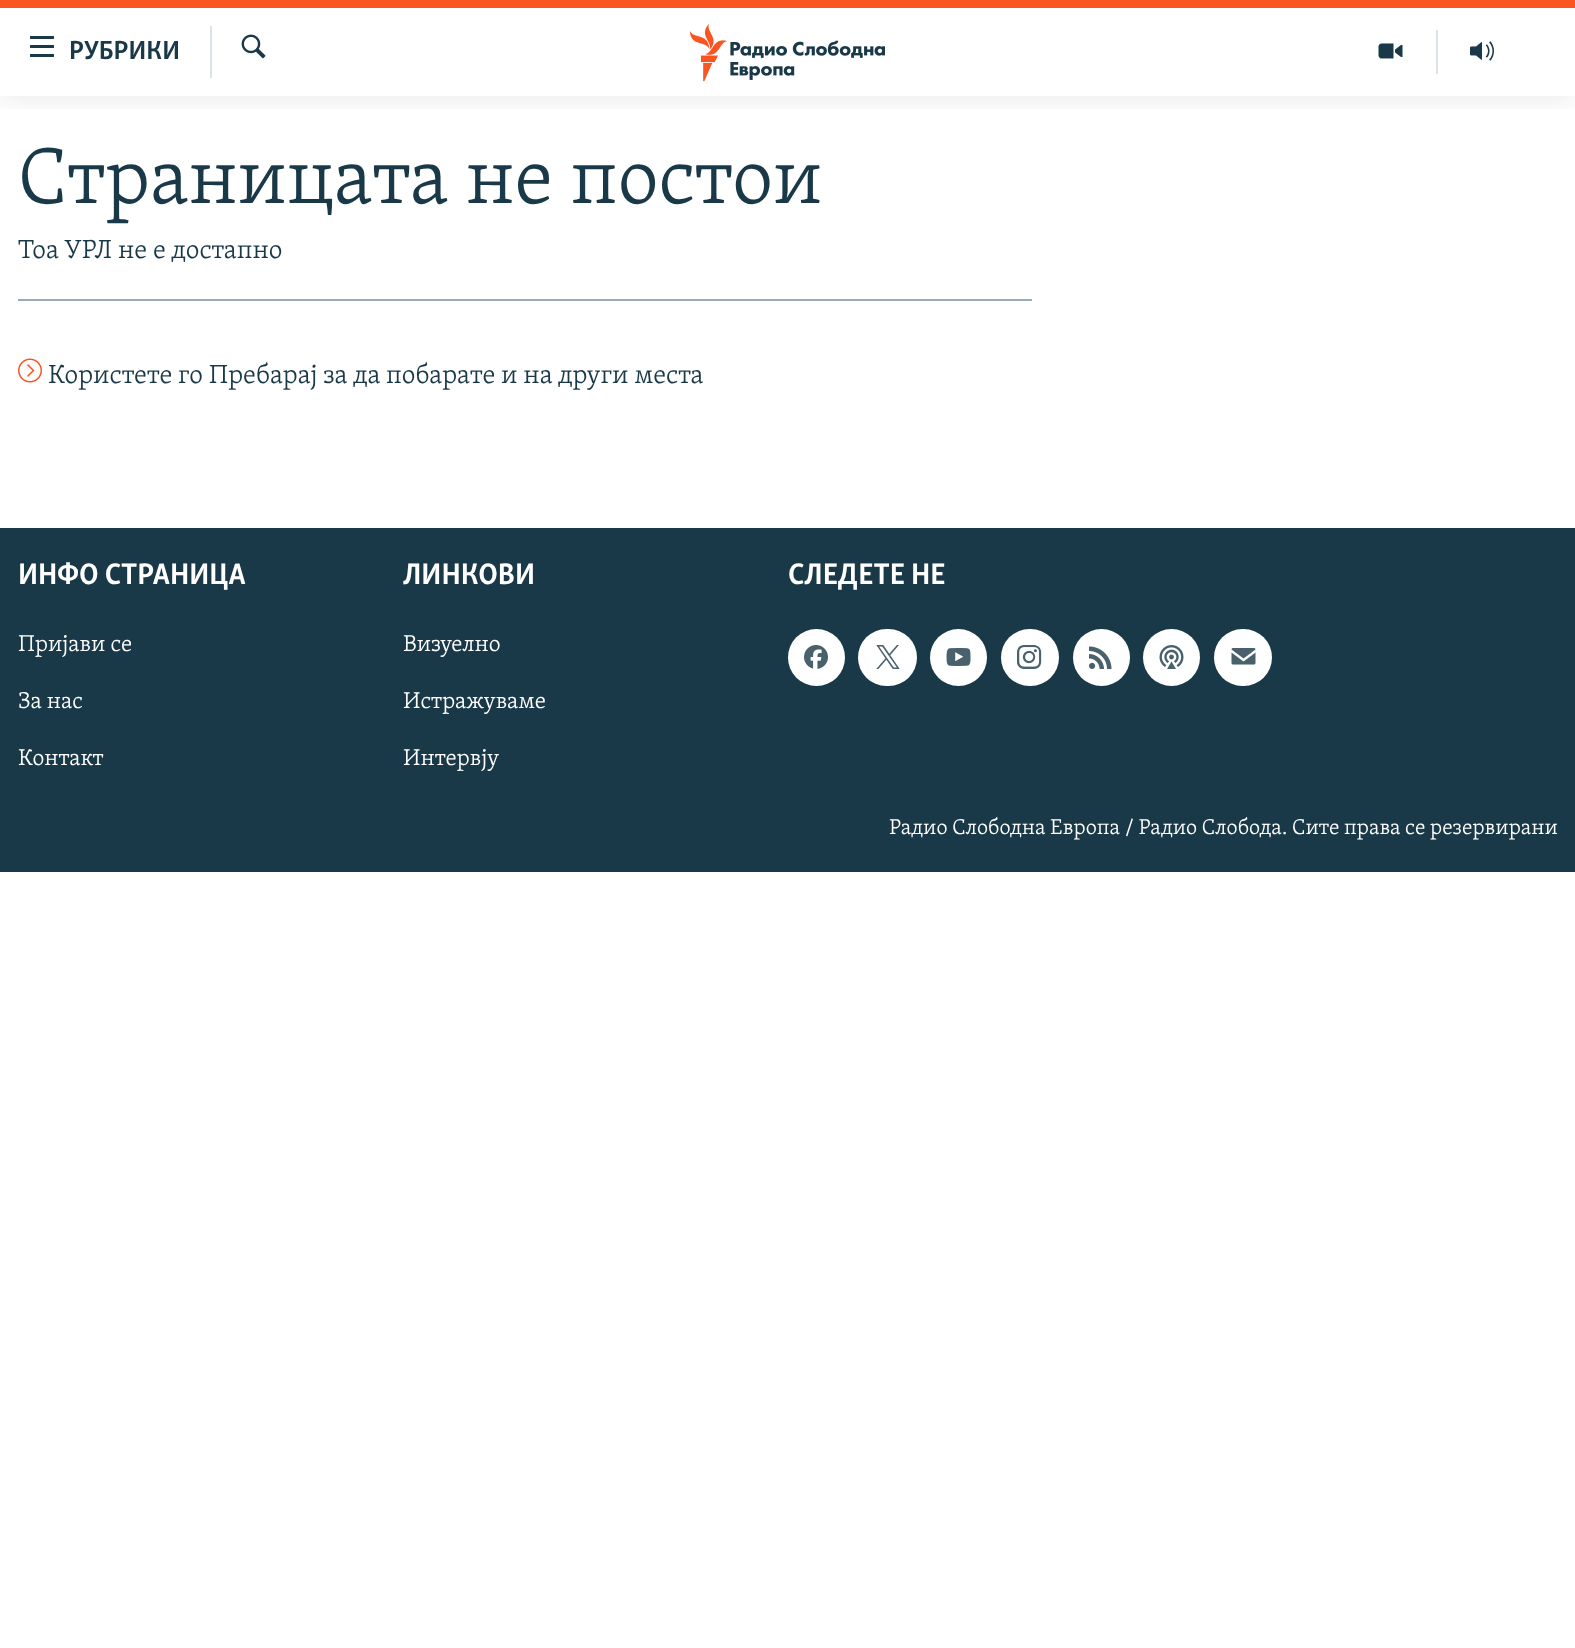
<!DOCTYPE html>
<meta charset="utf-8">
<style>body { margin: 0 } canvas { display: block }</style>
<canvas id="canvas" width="1575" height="1648"></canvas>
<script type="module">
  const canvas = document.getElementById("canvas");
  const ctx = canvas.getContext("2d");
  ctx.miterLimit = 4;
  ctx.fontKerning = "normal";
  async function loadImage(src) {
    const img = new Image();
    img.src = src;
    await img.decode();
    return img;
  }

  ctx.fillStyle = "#ffffff";
  ctx.fillRect(0, 0, 1575, 1648);
  ctx.save();
  ctx.beginPath();
  ctx.rect(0, 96, 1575, 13);
  ctx.clip();
  ctx.fillStyle = "rgba(0, 0, 0, 0.1)";
  ctx.filter = "blur(15px)";
  ctx.beginPath();
  ctx.rect(0, 0, 1575, 96);
  ctx.fill();
  ctx.filter = "none";
  ctx.restore();
  ctx.fillStyle = "#fa5420";
  ctx.fillRect(0, 0, 1575, 8);
  ctx.drawImage(await loadImage("img1.png"), 30, 36, 24, 21);
  ctx.font = "bold 27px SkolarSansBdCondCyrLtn";
  ctx.fillStyle = "#1a3948";
  ctx.fillText("РУБРИКИ", 69, 59);
  ctx.fillStyle = "#dce4e8";
  ctx.fillRect(210, 26, 2, 52);
  ctx.drawImage(await loadImage("img2.png"), 241, 34, 25, 25);
  ctx.drawImage(await loadImage("img3.png"), 690, 24, 195, 58);
  ctx.fillRect(1436, 30, 2, 44);
  ctx.drawImage(await loadImage("img4.png"), 1378, 43, 25, 16);
  ctx.drawImage(await loadImage("img5.png"), 1470, 41, 24, 20);
  ctx.font = "300 81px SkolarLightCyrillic";
  ctx.fillStyle = "#1a3948";
  ctx.fillText("Страницата не постои", 18, 203);
  ctx.fillStyle = "#95adb9";
  ctx.fillRect(18, 299, 1014, 2);
  ctx.font = "300 27px SkolarLightCyrillic";
  ctx.fillStyle = "#1a3948";
  ctx.fillText("Тоа УРЛ не е достапно", 18, 258);
  ctx.drawImage(await loadImage("img6.png"), 18, 358, 24, 25);
  ctx.fillText("Користете го Пребарај за да побарате и на други места", 48, 383);
  ctx.fillRect(0, 528, 1575, 344);
  ctx.font = "bold 30.5px SkolarSansBdCondCyrLtn";
  ctx.fillStyle = "#ffffff";
  ctx.fillText("ИНФО СТРАНИЦА", 18, 584);
  ctx.font = "300 23.5px SkolarLightCyrillic";
  ctx.fillText("Пријави се", 18, 651);
  ctx.fillText("За нас", 18, 708);
  ctx.fillText("Контакт", 18, 765);
  ctx.font = "bold 30.5px SkolarSansBdCondCyrLtn";
  ctx.fillText("ЛИНКОВИ", 403, 584);
  ctx.font = "300 23.5px SkolarLightCyrillic";
  ctx.fillText("Визуелно", 403, 651);
  ctx.fillText("Истражуваме", 403, 708);
  ctx.fillText("Интервју", 403, 765);
  ctx.font = "bold 30.5px SkolarSansBdCondCyrLtn";
  ctx.fillText("СЛЕДЕТЕ НЕ", 788, 584);
  ctx.beginPath();
  ctx.arc(816.5, 657.5, 28.5, 0, Math.PI * 2);
  ctx.fill();
  ctx.drawImage(await loadImage("img7.png"), 804, 645, 24, 24);
  ctx.beginPath();
  ctx.roundRect(858, 629, 59, 57, 28.5);
  ctx.fill();
  ctx.drawImage(await loadImage("img8.png"), 876, 645, 24, 24);
  ctx.beginPath();
  ctx.arc(958.5, 657.5, 28.5, 0, Math.PI * 2);
  ctx.fill();
  ctx.drawImage(await loadImage("img9.png"), 946, 648, 25, 18);
  ctx.beginPath();
  ctx.roundRect(1001, 629, 58, 57, 28.5);
  ctx.fill();
  ctx.drawImage(await loadImage("img10.png"), 1017, 645, 25, 24);
  ctx.beginPath();
  ctx.arc(1101.5, 657.5, 28.5, 0, Math.PI * 2);
  ctx.fill();
  ctx.drawImage(await loadImage("img11.png"), 1089, 646, 23, 23);
  ctx.beginPath();
  ctx.arc(1171.5, 657.5, 28.5, 0, Math.PI * 2);
  ctx.fill();
  ctx.drawImage(await loadImage("img12.png"), 1159, 645, 25, 24);
  ctx.beginPath();
  ctx.roundRect(1214, 629, 58, 57, 28.5);
  ctx.fill();
  ctx.drawImage(await loadImage("img13.png"), 1231, 648, 25, 17);
  ctx.font = "300 21.95px SkolarLightCyrillic";
  ctx.fillText("Радио Слободна Европа / Радио Слобода. Сите права се резервирани", 889, 834);
</script>
